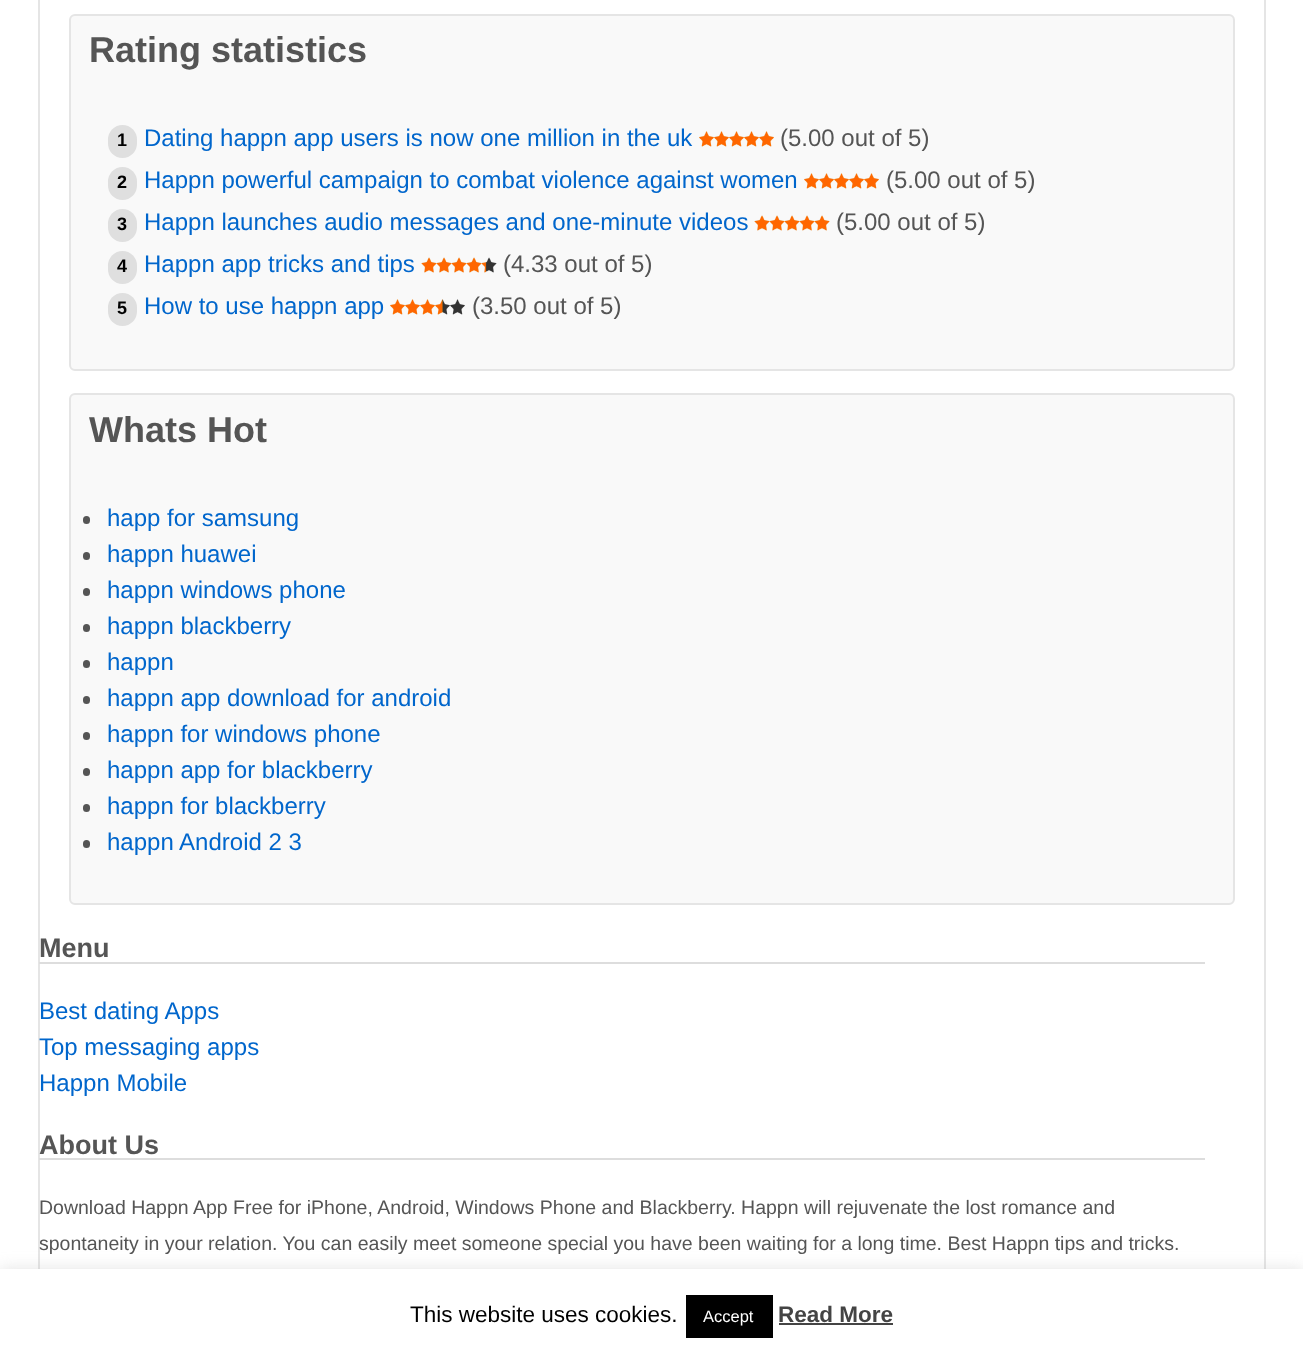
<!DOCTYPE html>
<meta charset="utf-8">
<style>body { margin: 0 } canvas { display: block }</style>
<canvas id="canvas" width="1303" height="1356"></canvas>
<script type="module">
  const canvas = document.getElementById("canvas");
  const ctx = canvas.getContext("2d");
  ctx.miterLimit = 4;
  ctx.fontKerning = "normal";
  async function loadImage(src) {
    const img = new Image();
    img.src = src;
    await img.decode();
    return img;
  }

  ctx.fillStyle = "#ffffff";
  ctx.fillRect(0, 0, 1303, 1356);
  ctx.strokeStyle = "#e5e5e5";
  ctx.lineWidth = 2;
  ctx.strokeRect(39, -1, 1226, 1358);
  ctx.fillStyle = "#f9f9f9";
  ctx.beginPath();
  ctx.roundRect(70, 15, 1164, 355, 5);
  ctx.fill();
  ctx.stroke();
  ctx.font = "bold 36px Liberation Sans";
  ctx.fillStyle = "#555555";
  ctx.fillText("Rating statistics", 89, 62);
  ctx.fillStyle = "#dfdfdf";
  ctx.beginPath();
  ctx.roundRect(108, 125, 29, 33, 14.5);
  ctx.fill();
  ctx.font = "bold 18px Liberation Sans";
  ctx.fillStyle = "#000000";
  ctx.fillText("1", 117, 146);
  ctx.font = "24px Liberation Sans";
  ctx.fillStyle = "#0066cc";
  ctx.fillText("Dating happn app users is now one million in the uk", 144, 146);
  ctx.drawImage(await loadImage("img1.png"), 699, 131, 15, 16);
  ctx.drawImage(await loadImage("img1.png"), 714, 131, 15, 16);
  ctx.drawImage(await loadImage("img1.png"), 729, 131, 15, 16);
  ctx.drawImage(await loadImage("img1.png"), 744, 131, 15, 16);
  ctx.drawImage(await loadImage("img2.png"), 759, 131, 15, 16);
  ctx.fillStyle = "#555555";
  ctx.fillText("(5.00 out of 5)", 780, 146);
  ctx.fillStyle = "#dfdfdf";
  ctx.beginPath();
  ctx.roundRect(108, 167, 29, 33, 14.5);
  ctx.fill();
  ctx.font = "bold 18px Liberation Sans";
  ctx.fillStyle = "#000000";
  ctx.fillText("2", 117, 188);
  ctx.font = "24px Liberation Sans";
  ctx.fillStyle = "#0066cc";
  ctx.fillText("Happn powerful campaign to combat violence against women", 144, 188);
  ctx.drawImage(await loadImage("img3.png"), 804, 173, 15, 16);
  ctx.drawImage(await loadImage("img3.png"), 819, 173, 15, 16);
  ctx.drawImage(await loadImage("img3.png"), 834, 173, 15, 16);
  ctx.drawImage(await loadImage("img3.png"), 849, 173, 15, 16);
  ctx.drawImage(await loadImage("img3.png"), 864, 173, 15, 16);
  ctx.fillStyle = "#555555";
  ctx.fillText("(5.00 out of 5)", 886, 188);
  ctx.fillStyle = "#dfdfdf";
  ctx.beginPath();
  ctx.roundRect(108, 209, 29, 33, 14.5);
  ctx.fill();
  ctx.font = "bold 18px Liberation Sans";
  ctx.fillStyle = "#000000";
  ctx.fillText("3", 117, 230);
  ctx.font = "24px Liberation Sans";
  ctx.fillStyle = "#0066cc";
  ctx.fillText("Happn launches audio messages and one-minute videos", 144, 230);
  ctx.drawImage(await loadImage("img4.png"), 754, 215, 16, 16);
  ctx.drawImage(await loadImage("img5.png"), 769, 215, 16, 16);
  ctx.drawImage(await loadImage("img5.png"), 784, 215, 16, 16);
  ctx.drawImage(await loadImage("img5.png"), 799, 215, 16, 16);
  ctx.drawImage(await loadImage("img5.png"), 814, 215, 16, 16);
  ctx.fillStyle = "#555555";
  ctx.fillText("(5.00 out of 5)", 836, 230);
  ctx.fillStyle = "#dfdfdf";
  ctx.beginPath();
  ctx.roundRect(108, 251, 29, 33, 14.5);
  ctx.fill();
  ctx.font = "bold 18px Liberation Sans";
  ctx.fillStyle = "#000000";
  ctx.fillText("4", 117, 272);
  ctx.font = "24px Liberation Sans";
  ctx.fillStyle = "#0066cc";
  ctx.fillText("Happn app tricks and tips", 144, 272);
  ctx.drawImage(await loadImage("img6.png"), 421, 257, 16, 16);
  ctx.drawImage(await loadImage("img5.png"), 436, 257, 16, 16);
  ctx.drawImage(await loadImage("img5.png"), 451, 257, 16, 16);
  ctx.drawImage(await loadImage("img5.png"), 466, 257, 16, 16);
  ctx.drawImage(await loadImage("img7.png"), 481, 257, 16, 16);
  ctx.fillStyle = "#555555";
  ctx.fillText("(4.33 out of 5)", 503, 272);
  ctx.fillStyle = "#dfdfdf";
  ctx.beginPath();
  ctx.roundRect(108, 293, 29, 33, 14.5);
  ctx.fill();
  ctx.font = "bold 18px Liberation Sans";
  ctx.fillStyle = "#000000";
  ctx.fillText("5", 117, 314);
  ctx.font = "24px Liberation Sans";
  ctx.fillStyle = "#0066cc";
  ctx.fillText("How to use happn app", 144, 314);
  ctx.drawImage(await loadImage("img1.png"), 390, 299, 15, 16);
  ctx.drawImage(await loadImage("img1.png"), 405, 299, 15, 16);
  ctx.drawImage(await loadImage("img1.png"), 420, 299, 15, 16);
  ctx.drawImage(await loadImage("img8.png"), 435, 299, 15, 16);
  ctx.drawImage(await loadImage("img9.png"), 450, 299, 15, 16);
  ctx.fillStyle = "#555555";
  ctx.fillText("(3.50 out of 5)", 472, 314);
  ctx.fillStyle = "#f9f9f9";
  ctx.beginPath();
  ctx.roundRect(70, 394, 1164, 510, 5);
  ctx.fill();
  ctx.stroke();
  ctx.font = "bold 36px Liberation Sans";
  ctx.fillStyle = "#555555";
  ctx.fillText("Whats Hot", 89, 442);
  ctx.beginPath();
  ctx.roundRect(83, 516, 7, 8, 3.5);
  ctx.fill();
  ctx.font = "24px Liberation Sans";
  ctx.fillStyle = "#0066cc";
  ctx.fillText("happ for samsung", 107, 526);
  ctx.fillStyle = "#555555";
  ctx.beginPath();
  ctx.roundRect(83, 552, 7, 8, 3.5);
  ctx.fill();
  ctx.fillStyle = "#0066cc";
  ctx.fillText("happn huawei", 107, 562);
  ctx.fillStyle = "#555555";
  ctx.beginPath();
  ctx.roundRect(83, 588, 7, 8, 3.5);
  ctx.fill();
  ctx.fillStyle = "#0066cc";
  ctx.fillText("happn windows phone", 107, 598);
  ctx.fillStyle = "#555555";
  ctx.beginPath();
  ctx.roundRect(83, 624, 7, 8, 3.5);
  ctx.fill();
  ctx.fillStyle = "#0066cc";
  ctx.fillText("happn blackberry", 107, 634);
  ctx.fillStyle = "#555555";
  ctx.beginPath();
  ctx.roundRect(83, 660, 7, 8, 3.5);
  ctx.fill();
  ctx.fillStyle = "#0066cc";
  ctx.fillText("happn", 107, 670);
  ctx.fillStyle = "#555555";
  ctx.beginPath();
  ctx.roundRect(83, 696, 7, 8, 3.5);
  ctx.fill();
  ctx.fillStyle = "#0066cc";
  ctx.fillText("happn app download for android", 107, 706);
  ctx.fillStyle = "#555555";
  ctx.beginPath();
  ctx.roundRect(83, 732, 7, 8, 3.5);
  ctx.fill();
  ctx.fillStyle = "#0066cc";
  ctx.fillText("happn for windows phone", 107, 742);
  ctx.fillStyle = "#555555";
  ctx.beginPath();
  ctx.roundRect(83, 768, 7, 8, 3.5);
  ctx.fill();
  ctx.fillStyle = "#0066cc";
  ctx.fillText("happn app for blackberry", 107, 778);
  ctx.fillStyle = "#555555";
  ctx.beginPath();
  ctx.roundRect(83, 804, 7, 8, 3.5);
  ctx.fill();
  ctx.fillStyle = "#0066cc";
  ctx.fillText("happn for blackberry", 107, 814);
  ctx.fillStyle = "#555555";
  ctx.beginPath();
  ctx.roundRect(83, 840, 7, 8, 3.5);
  ctx.fill();
  ctx.fillStyle = "#0066cc";
  ctx.fillText("happn Android 2 3", 107, 850);
  ctx.fillStyle = "#dddddd";
  ctx.fillRect(39, 962, 1166, 2);
  ctx.font = "bold 27px Liberation Sans";
  ctx.fillStyle = "#555555";
  ctx.fillText("Menu", 39, 957);
  ctx.font = "24px Liberation Sans";
  ctx.fillStyle = "#0066cc";
  ctx.fillText("Best dating Apps", 39, 1019);
  ctx.fillText("Top messaging apps", 39, 1055);
  ctx.fillText("Happn Mobile", 39, 1091);
  ctx.fillStyle = "#dddddd";
  ctx.fillRect(39, 1158, 1166, 2);
  ctx.font = "bold 27px Liberation Sans";
  ctx.fillStyle = "#555555";
  ctx.fillText("About Us", 39, 1154);
  ctx.font = "19.5px Liberation Sans";
  ctx.fillText("Download Happn App Free for iPhone, Android, Windows Phone and Blackberry. Happn will rejuvenate the lost romance and", 39, 1214);
  ctx.fillText("spontaneity in your relation. You can easily meet someone special you have been waiting for a long time. Best Happn tips and tricks.", 39, 1250);
  ctx.fillStyle = "rgba(172, 171, 171, 0.3)";
  ctx.filter = "blur(7.5px)";
  ctx.beginPath();
  ctx.rect(0, 1268, 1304, 87);
  ctx.fill();
  ctx.filter = "none";
  ctx.fillStyle = "#ffffff";
  ctx.fillRect(0, 1269, 1303, 87);
  ctx.font = "22.5px Liberation Sans";
  ctx.fillStyle = "#000000";
  ctx.fillText("This website uses cookies.", 410, 1322);
  ctx.fillRect(686, 1295, 87, 43);
  ctx.font = "16.5px Liberation Sans";
  ctx.fillStyle = "#ffffff";
  ctx.fillText("Accept", 703, 1322);
  ctx.font = "bold 22.5px Liberation Sans";
  ctx.fillStyle = "#444444";
  ctx.fillText("Read More", 778, 1322);
  ctx.fillRect(779, 1323, 114, 2);
</script>
